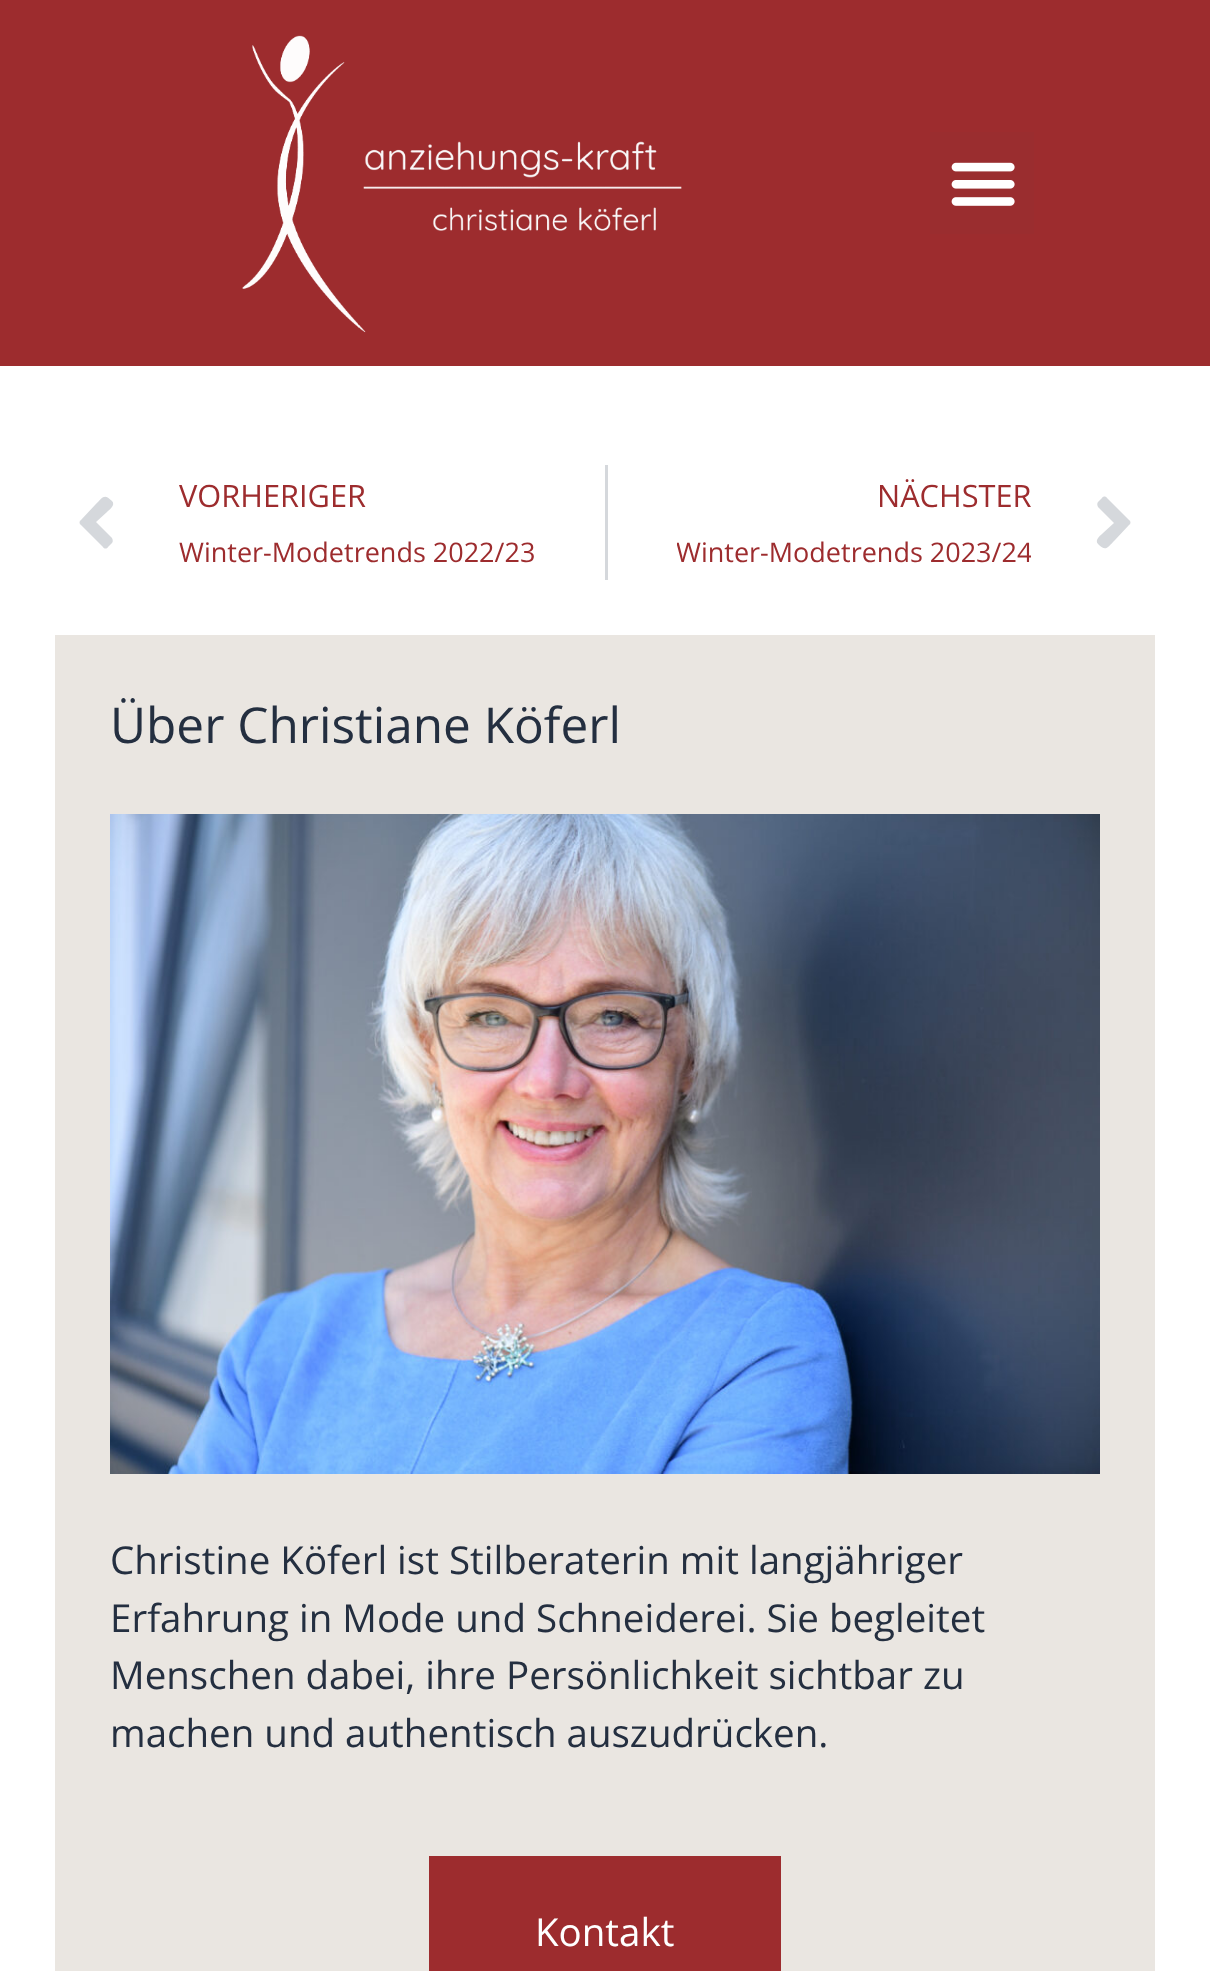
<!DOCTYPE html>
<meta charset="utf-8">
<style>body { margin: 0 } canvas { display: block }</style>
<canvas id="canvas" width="1210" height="1971"></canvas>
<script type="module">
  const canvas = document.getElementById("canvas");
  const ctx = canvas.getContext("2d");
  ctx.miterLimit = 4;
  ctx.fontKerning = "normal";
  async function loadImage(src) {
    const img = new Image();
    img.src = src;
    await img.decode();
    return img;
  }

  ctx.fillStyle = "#ffffff";
  ctx.fillRect(0, 0, 1210, 1971);
  ctx.fillStyle = "#9d2c2e";
  ctx.fillRect(0, 0, 1210, 366);
  ctx.drawImage(await loadImage("img1.png"), 242, 35, 440, 298);
  ctx.fillStyle = "#9a2d2f";
  ctx.fillRect(930, 132, 104, 102);
  ctx.drawImage(await loadImage("img2.png"), 951, 162, 64, 44);
  ctx.fillStyle = "#d5d8dc";
  ctx.beginPath();
  ctx.moveTo(81, 520);
  ctx.lineTo(95, 505);
  ctx.bezierCurveTo(103, 497, 104, 493, 112, 501);
  ctx.bezierCurveTo(116, 505, 109, 510, 107, 512);
  ctx.lineTo(96, 522);
  ctx.lineTo(112, 538);
  ctx.bezierCurveTo(113, 540, 113, 542, 112, 543);
  ctx.lineTo(108, 547);
  ctx.bezierCurveTo(107, 549, 104, 549, 103, 547);
  ctx.lineTo(81, 525);
  ctx.bezierCurveTo(79, 524, 79, 521, 81, 520);
  ctx.closePath();
  ctx.fill();
  ctx.font = "30.75px Open Sans";
  ctx.fillStyle = "#9d2c2e";
  ctx.fillText("VORHERIGER", 179, 507);
  ctx.font = "27px Open Sans";
  ctx.fillText("Winter-Modetrends 2022/23", 179, 562);
  ctx.fillStyle = "#d5d8dc";
  ctx.fillRect(605, 465, 3, 115);
  ctx.font = "30.75px Open Sans";
  ctx.fillStyle = "#9d2c2e";
  ctx.fillText("NÄCHSTER", 877, 507);
  ctx.save();
  ctx.beginPath();
  ctx.rect(677, 523, 354, 57);
  ctx.clip();
  ctx.font = "27px Open Sans";
  ctx.fillText("Winter-Modetrends 2023/24", 676, 562);
  ctx.restore();
  ctx.fillStyle = "#d5d8dc";
  ctx.beginPath();
  ctx.moveTo(1129, 525);
  ctx.lineTo(1115, 540);
  ctx.bezierCurveTo(1107, 548, 1106, 552, 1098, 544);
  ctx.bezierCurveTo(1094, 540, 1101, 535, 1103, 533);
  ctx.lineTo(1114, 523);
  ctx.lineTo(1098, 507);
  ctx.bezierCurveTo(1097, 505, 1097, 503, 1098, 502);
  ctx.lineTo(1102, 498);
  ctx.bezierCurveTo(1103, 496, 1106, 496, 1107, 498);
  ctx.lineTo(1129, 520);
  ctx.bezierCurveTo(1131, 521, 1131, 524, 1129, 525);
  ctx.closePath();
  ctx.fill();
  ctx.fillStyle = "#eae6e1";
  ctx.fillRect(55, 635, 1100, 1336);
  ctx.font = "49.5px Open Sans";
  ctx.fillStyle = "#242f40";
  ctx.fillText("Über Christiane Köferl", 110, 743);
  ctx.drawImage(await loadImage("img3.png"), 110, 814, 990, 660);
  ctx.font = "38.5px Open Sans";
  ctx.fillText("Christine Köferl ist Stilberaterin mit langjähriger", 110, 1574);
  ctx.fillText("Erfahrung in Mode und Schneiderei. Sie begleitet", 110, 1632);
  ctx.fillText("Menschen dabei, ihre Persönlichkeit sichtbar zu", 110, 1689);
  ctx.fillText("machen und authentisch auszudrücken.", 110, 1747);
  ctx.fillStyle = "#9d2c2e";
  ctx.fillRect(429, 1856, 352, 115);
  ctx.fillStyle = "#ffffff";
  ctx.fillText("Kontakt", 535, 1946);
</script>
